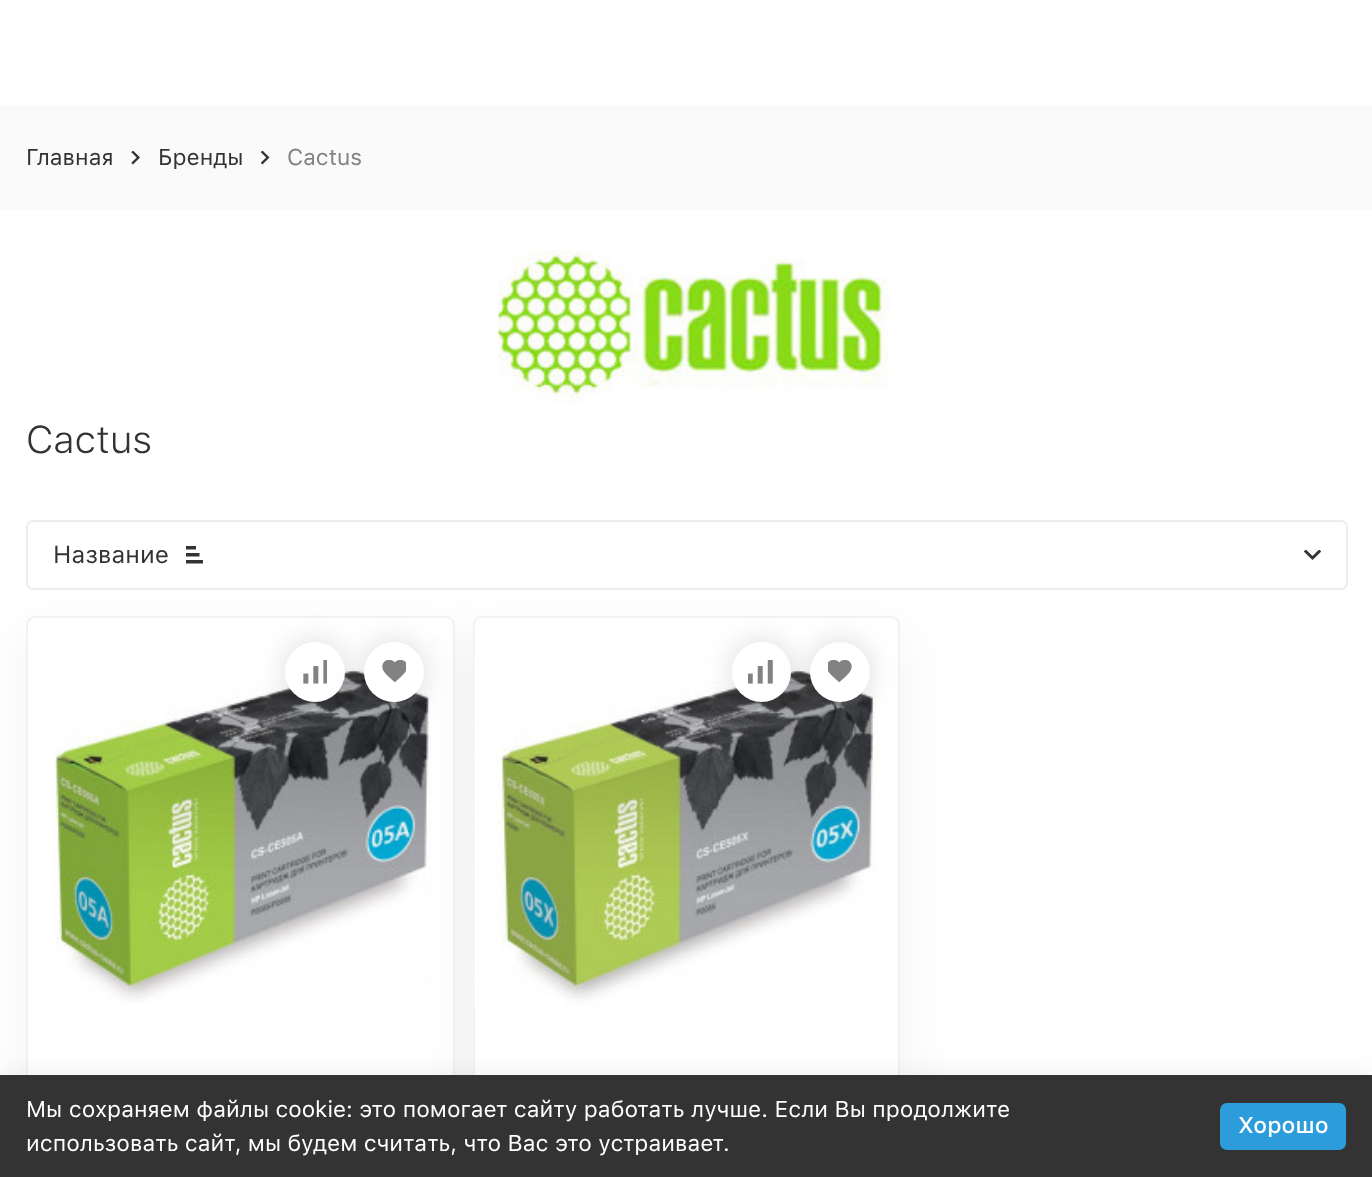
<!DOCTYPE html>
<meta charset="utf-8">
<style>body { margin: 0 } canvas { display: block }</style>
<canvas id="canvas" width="1372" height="1177"></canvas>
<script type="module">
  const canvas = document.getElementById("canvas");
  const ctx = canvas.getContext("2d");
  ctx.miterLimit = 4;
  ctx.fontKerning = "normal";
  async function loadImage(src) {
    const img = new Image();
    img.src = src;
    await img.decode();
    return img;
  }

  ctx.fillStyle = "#ffffff";
  ctx.fillRect(0, 0, 1372, 1177);
  ctx.fillStyle = "#fafafa";
  ctx.fillRect(0, 105, 1372, 105);
  ctx.font = "22.75px SF Pro Text";
  ctx.fillStyle = "#333333";
  ctx.fillText("Главная", 26, 165);
  ctx.drawImage(await loadImage("img1.png"), 131, 151, 9, 14);
  ctx.fillText("Бренды", 158, 165);
  ctx.drawImage(await loadImage("img2.png"), 261, 151, 9, 14);
  ctx.fillStyle = "#828282";
  ctx.fillText("Cactus", 287, 165);
  ctx.drawImage(await loadImage("img3.png"), 498, 250, 391, 155);
  ctx.font = "300 38.5px SF Pro Text";
  ctx.fillStyle = "#333333";
  ctx.fillText("Cactus", 26, 453);
  ctx.beginPath();
  ctx.roundRect(27, 521, 1320, 68, 6);
  ctx.strokeStyle = "#ededed";
  ctx.lineWidth = 2;
  ctx.stroke();
  ctx.font = "24.5px SF Pro Text";
  ctx.fillText("Название", 53, 563);
  ctx.drawImage(await loadImage("img4.png"), 186, 546, 17, 18);
  ctx.drawImage(await loadImage("img5.png"), 1304, 550, 17, 10);
  ctx.fillStyle = "rgba(0, 0, 0, 0.05)";
  ctx.filter = "blur(26px)";
  ctx.beginPath();
  ctx.roundRect(26, 634, 429, 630, 9);
  ctx.fill();
  ctx.filter = "none";
  ctx.fillStyle = "#ffffff";
  ctx.beginPath();
  ctx.roundRect(27, 617, 427, 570, 8);
  ctx.fill();
  ctx.strokeStyle = "#f2f2f2";
  ctx.stroke();
  ctx.drawImage(await loadImage("img8.png"), 53, 668, 378, 335);
  ctx.fillStyle = "rgba(0, 0, 0, 0.15)";
  ctx.filter = "blur(14.5px)";
  ctx.beginPath();
  ctx.roundRect(285, 642, 60, 60, 30);
  ctx.fill();
  ctx.filter = "none";
  ctx.fillStyle = "#ffffff";
  ctx.beginPath();
  ctx.arc(315, 672, 30, 0, Math.PI * 2);
  ctx.fill();
  ctx.fillStyle = "rgba(0, 0, 0, 0.15)";
  ctx.filter = "blur(14.5px)";
  ctx.beginPath();
  ctx.roundRect(364, 642, 60, 60, 30);
  ctx.fill();
  ctx.filter = "none";
  ctx.drawImage(await loadImage("img6.png"), 303, 660, 24, 24);
  ctx.fillStyle = "rgba(0, 0, 0, 0.05)";
  ctx.filter = "blur(26px)";
  ctx.beginPath();
  ctx.roundRect(473, 634, 427, 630, 9);
  ctx.fill();
  ctx.filter = "none";
  ctx.fillStyle = "#ffffff";
  ctx.beginPath();
  ctx.arc(394, 672, 30, 0, Math.PI * 2);
  ctx.fill();
  ctx.drawImage(await loadImage("img7.png"), 382, 660, 24, 23);
  ctx.beginPath();
  ctx.roundRect(474, 617, 425, 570, 8);
  ctx.fill();
  ctx.stroke();
  ctx.drawImage(await loadImage("img11.png"), 474, 655, 402, 353);
  ctx.fillStyle = "rgba(0, 0, 0, 0.15)";
  ctx.filter = "blur(14.5px)";
  ctx.beginPath();
  ctx.roundRect(732, 642, 59, 60, 29.5);
  ctx.fill();
  ctx.filter = "none";
  ctx.fillStyle = "#ffffff";
  ctx.beginPath();
  ctx.roundRect(732, 642, 59, 60, 29.5);
  ctx.fill();
  ctx.fillStyle = "rgba(0, 0, 0, 0.15)";
  ctx.filter = "blur(14.5px)";
  ctx.beginPath();
  ctx.roundRect(810, 642, 60, 60, 30);
  ctx.fill();
  ctx.filter = "none";
  ctx.drawImage(await loadImage("img9.png"), 748, 660, 25, 24);
  ctx.fillStyle = "#ffffff";
  ctx.beginPath();
  ctx.arc(840, 672, 30, 0, Math.PI * 2);
  ctx.fill();
  ctx.drawImage(await loadImage("img10.png"), 828, 660, 24, 23);
  ctx.fillStyle = "rgba(0, 0, 0, 0.07)";
  ctx.filter = "blur(13px)";
  ctx.beginPath();
  ctx.rect(0, 1075, 1372, 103);
  ctx.fill();
  ctx.filter = "none";
  ctx.fillStyle = "#333333";
  ctx.fillRect(0, 1075, 1372, 102);
  ctx.font = "22.75px SF Pro Text";
  ctx.fillStyle = "#ffffff";
  ctx.fillText("Мы сохраняем файлы cookie: это помогает сайту работать лучше. Если Вы продолжите", 26, 1117);
  ctx.fillText("использовать сайт, мы будем считать, что Вас это устраивает.", 26, 1151);
  ctx.fillStyle = "#2d9cdb";
  ctx.beginPath();
  ctx.roundRect(1220, 1103, 126, 47, 7);
  ctx.fill();
  ctx.font = "500 22.75px SF Pro Text";
  ctx.fillStyle = "#ffffff";
  ctx.fillText("Хорошо", 1238, 1133);
</script>
